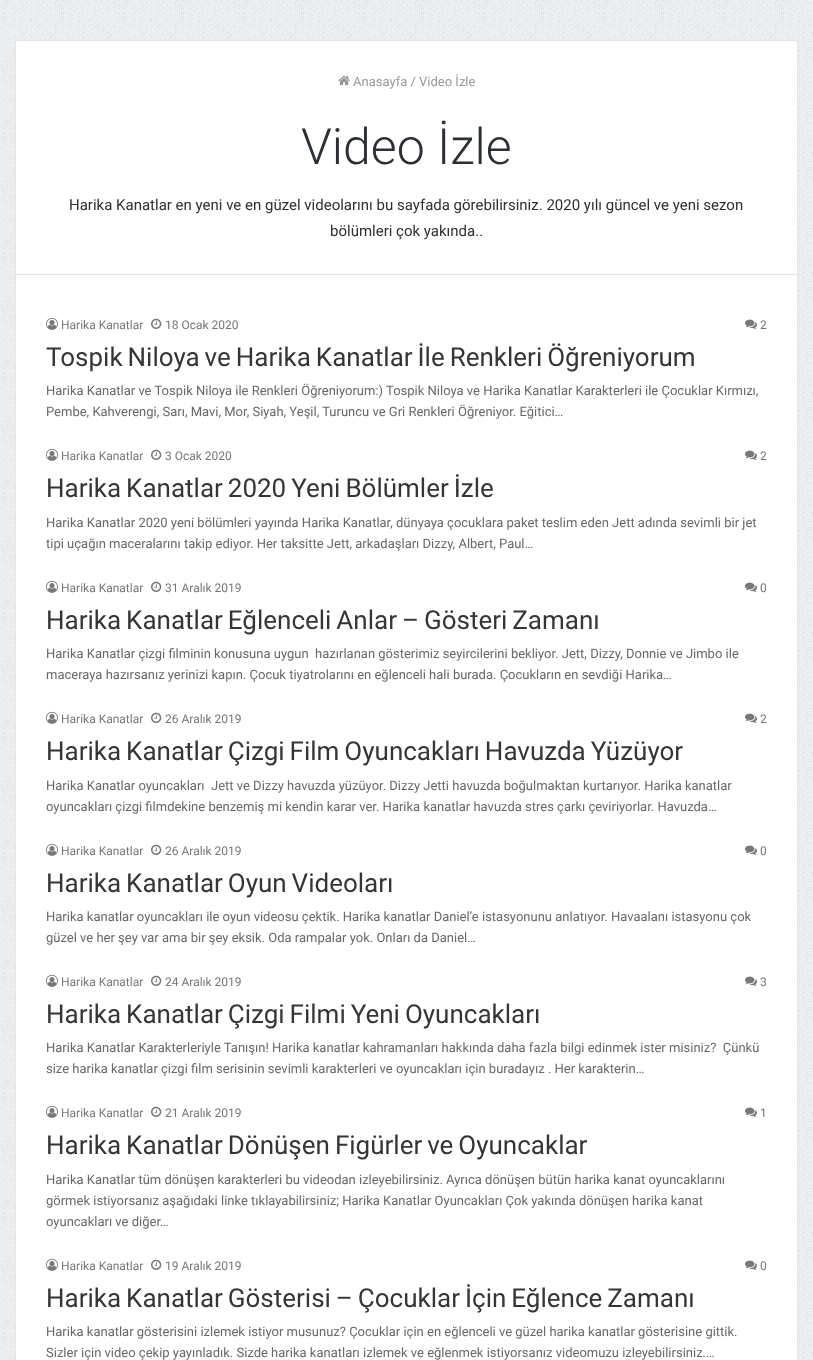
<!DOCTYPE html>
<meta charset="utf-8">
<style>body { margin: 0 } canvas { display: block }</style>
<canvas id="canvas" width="813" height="1360"></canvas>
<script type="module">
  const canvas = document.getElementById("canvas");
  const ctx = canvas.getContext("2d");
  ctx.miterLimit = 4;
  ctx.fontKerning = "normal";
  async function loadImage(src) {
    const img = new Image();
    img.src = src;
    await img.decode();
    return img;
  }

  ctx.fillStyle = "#f5f6f7";
  ctx.fillRect(0, 0, 813, 1360);
  ctx.drawImage(await loadImage("img1.png"), 0, 0, 813, 1360);
  ctx.fillStyle = "#ffffff";
  ctx.beginPath();
  ctx.roundRect(15.5, 40.5, 782, 234, [1.5, 1.5, 0, 0]);
  ctx.fill();
  ctx.strokeStyle = "#e5e5e5";
  ctx.stroke();
  ctx.drawImage(await loadImage("img2.png"), 338, 75, 12, 11);
  ctx.font = "13px Roboto";
  ctx.fillStyle = "#999999";
  ctx.fillText("Anasayfa / Video İzle", 353, 86);
  ctx.font = "300 50px Roboto";
  ctx.fillStyle = "#2c2f34";
  ctx.fillText("Video İzle", 301, 164);
  ctx.font = "15px Roboto";
  ctx.fillText("Harika Kanatlar en yeni ve en güzel videolarını bu sayfada görebilirsiniz. 2020 yılı güncel ve yeni sezon", 69, 210);
  ctx.fillText("bölümleri çok yakında..", 330, 236);
  ctx.fillStyle = "rgba(255, 255, 255, 0.99)";
  ctx.fillRect(16, 275, 781, 1085);
  ctx.fillStyle = "#e6e6e6";
  ctx.fillRect(797, 275, 1, 1085);
  ctx.fillRect(15, 275, 1, 1085);
  ctx.drawImage(await loadImage("img3.png"), 46, 317, 12, 13);
  ctx.font = "12px Roboto";
  ctx.fillStyle = "#777777";
  ctx.fillText("Harika Kanatlar", 61, 329);
  ctx.drawImage(await loadImage("img4.png"), 151, 318, 11, 11);
  ctx.fillText("18 Ocak 2020", 165, 329);
  ctx.drawImage(await loadImage("img5.png"), 745, 319, 12, 10);
  ctx.fillText("2", 760, 329);
  ctx.wordSpacing = "-1.5px";
  ctx.font = "26px 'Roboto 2'";
  ctx.fillStyle = "#353535";
  ctx.fillText("Tospik Niloya ve Harika Kanatlar İle Renkleri Öğreniyorum", 46, 366);
  ctx.wordSpacing = "0px";
  ctx.font = "13px Roboto";
  ctx.fillStyle = "#686868";
  ctx.fillText("Harika Kanatlar ve Tospik Niloya ile Renkleri Öğreniyorum:) Tospik Niloya ve Harika Kanatlar Karakterleri ile Çocuklar Kırmızı,", 46, 395);
  ctx.fillText("Pembe, Kahverengi, Sarı, Mavi, Mor, Siyah, Yeşil, Turuncu ve Gri Renkleri Öğreniyor. Eğitici…", 46, 416);
  ctx.drawImage(await loadImage("img6.png"), 46, 448, 12, 13);
  ctx.font = "12px Roboto";
  ctx.fillStyle = "#777777";
  ctx.fillText("Harika Kanatlar", 61, 460);
  ctx.drawImage(await loadImage("img7.png"), 151, 449, 11, 11);
  ctx.fillText("3 Ocak 2020", 165, 460);
  ctx.drawImage(await loadImage("img8.png"), 745, 450, 12, 10);
  ctx.fillText("2", 760, 460);
  ctx.wordSpacing = "-1.5px";
  ctx.font = "26px 'Roboto 2'";
  ctx.fillStyle = "#353535";
  ctx.fillText("Harika Kanatlar 2020 Yeni Bölümler İzle", 46, 497);
  ctx.wordSpacing = "0px";
  ctx.font = "13px Roboto";
  ctx.fillStyle = "#686868";
  ctx.fillText("Harika Kanatlar 2020 yeni bölümleri yayında Harika Kanatlar, dünyaya çocuklara paket teslim eden Jett adında sevimli bir jet", 46, 527);
  ctx.fillText("tipi uçağın maceralarını takip ediyor. Her taksitte Jett, arkadaşları Dizzy, Albert, Paul…", 46, 548);
  ctx.drawImage(await loadImage("img9.png"), 46, 580, 12, 13);
  ctx.font = "12px Roboto";
  ctx.fillStyle = "#777777";
  ctx.fillText("Harika Kanatlar", 61, 592);
  ctx.drawImage(await loadImage("img10.png"), 151, 581, 11, 11);
  ctx.fillText("31 Aralık 2019", 165, 592);
  ctx.drawImage(await loadImage("img11.png"), 745, 582, 12, 10);
  ctx.fillText("0", 760, 592);
  ctx.wordSpacing = "-1.5px";
  ctx.font = "26px 'Roboto 2'";
  ctx.fillStyle = "#353535";
  ctx.fillText("Harika Kanatlar Eğlenceli Anlar – Gösteri Zamanı", 46, 629);
  ctx.wordSpacing = "0px";
  ctx.font = "13px Roboto";
  ctx.fillStyle = "#686868";
  ctx.fillText("Harika Kanatlar çizgi filminin konusuna uygun  hazırlanan gösterimiz seyircilerini bekliyor. Jett, Dizzy, Donnie ve Jimbo ile", 46, 658);
  ctx.fillText("maceraya hazırsanız yerinizi kapın. Çocuk tiyatrolarını en eğlenceli hali burada. Çocukların en sevdiği Harika…", 46, 679);
  ctx.drawImage(await loadImage("img12.png"), 46, 711, 12, 13);
  ctx.font = "12px Roboto";
  ctx.fillStyle = "#777777";
  ctx.fillText("Harika Kanatlar", 61, 723);
  ctx.drawImage(await loadImage("img13.png"), 151, 712, 11, 11);
  ctx.fillText("26 Aralık 2019", 165, 723);
  ctx.drawImage(await loadImage("img14.png"), 745, 713, 12, 10);
  ctx.fillText("2", 760, 723);
  ctx.wordSpacing = "-1.5px";
  ctx.font = "26px 'Roboto 2'";
  ctx.fillStyle = "#353535";
  ctx.fillText("Harika Kanatlar Çizgi Film Oyuncakları Havuzda Yüzüyor", 46, 760);
  ctx.wordSpacing = "0px";
  ctx.font = "13px Roboto";
  ctx.fillStyle = "#686868";
  ctx.fillText("Harika Kanatlar oyuncakları  Jett ve Dizzy havuzda yüzüyor. Dizzy Jetti havuzda boğulmaktan kurtarıyor. Harika kanatlar", 46, 790);
  ctx.fillText("oyuncakları çizgi filmdekine benzemiş mi kendin karar ver. Harika kanatlar havuzda stres çarkı çeviriyorlar. Havuzda…", 46, 811);
  ctx.drawImage(await loadImage("img15.png"), 46, 843, 12, 13);
  ctx.font = "12px Roboto";
  ctx.fillStyle = "#777777";
  ctx.fillText("Harika Kanatlar", 61, 855);
  ctx.drawImage(await loadImage("img16.png"), 151, 844, 11, 11);
  ctx.fillText("26 Aralık 2019", 165, 855);
  ctx.drawImage(await loadImage("img17.png"), 745, 845, 12, 10);
  ctx.fillText("0", 760, 855);
  ctx.wordSpacing = "-1.5px";
  ctx.font = "26px 'Roboto 2'";
  ctx.fillStyle = "#353535";
  ctx.fillText("Harika Kanatlar Oyun Videoları", 46, 892);
  ctx.wordSpacing = "0px";
  ctx.font = "13px Roboto";
  ctx.fillStyle = "#686868";
  ctx.fillText("Harika kanatlar oyuncakları ile oyun videosu çektik. Harika kanatlar Daniel’e istasyonunu anlatıyor. Havaalanı istasyonu çok", 46, 921);
  ctx.fillText("güzel ve her şey var ama bir şey eksik. Oda rampalar yok. Onları da Daniel…", 46, 942);
  ctx.drawImage(await loadImage("img18.png"), 46, 974, 12, 13);
  ctx.font = "12px Roboto";
  ctx.fillStyle = "#777777";
  ctx.fillText("Harika Kanatlar", 61, 986);
  ctx.drawImage(await loadImage("img19.png"), 151, 975, 11, 11);
  ctx.fillText("24 Aralık 2019", 165, 986);
  ctx.drawImage(await loadImage("img20.png"), 745, 976, 12, 10);
  ctx.fillText("3", 760, 986);
  ctx.wordSpacing = "-1.5px";
  ctx.font = "26px 'Roboto 2'";
  ctx.fillStyle = "#353535";
  ctx.fillText("Harika Kanatlar Çizgi Filmi Yeni Oyuncakları", 46, 1023);
  ctx.wordSpacing = "0px";
  ctx.font = "13px Roboto";
  ctx.fillStyle = "#686868";
  ctx.fillText("Harika Kanatlar Karakterleriyle Tanışın! Harika kanatlar kahramanları hakkında daha fazla bilgi edinmek ister misiniz?  Çünkü", 46, 1052);
  ctx.fillText("size harika kanatlar çizgi film serisinin sevimli karakterleri ve oyuncakları için buradayız . Her karakterin…", 46, 1073);
  ctx.drawImage(await loadImage("img21.png"), 46, 1105, 12, 13);
  ctx.font = "12px Roboto";
  ctx.fillStyle = "#777777";
  ctx.fillText("Harika Kanatlar", 61, 1117);
  ctx.drawImage(await loadImage("img22.png"), 151, 1106, 11, 11);
  ctx.fillText("21 Aralık 2019", 165, 1117);
  ctx.drawImage(await loadImage("img23.png"), 745, 1107, 12, 10);
  ctx.fillText("1", 760, 1117);
  ctx.wordSpacing = "-1.5px";
  ctx.font = "26px 'Roboto 2'";
  ctx.fillStyle = "#353535";
  ctx.fillText("Harika Kanatlar Dönüşen Figürler ve Oyuncaklar", 46, 1154);
  ctx.wordSpacing = "0px";
  ctx.font = "13px Roboto";
  ctx.fillStyle = "#686868";
  ctx.fillText("Harika Kanatlar tüm dönüşen karakterleri bu videodan izleyebilirsiniz. Ayrıca dönüşen bütün harika kanat oyuncaklarını", 46, 1184);
  ctx.fillText("görmek istiyorsanız aşağıdaki linke tıklayabilirsiniz; Harika Kanatlar Oyuncakları Çok yakında dönüşen harika kanat", 46, 1205);
  ctx.fillText("oyuncakları ve diğer…", 46, 1226);
  ctx.drawImage(await loadImage("img24.png"), 46, 1258, 12, 13);
  ctx.font = "12px Roboto";
  ctx.fillStyle = "#777777";
  ctx.fillText("Harika Kanatlar", 61, 1270);
  ctx.drawImage(await loadImage("img25.png"), 151, 1259, 11, 11);
  ctx.fillText("19 Aralık 2019", 165, 1270);
  ctx.drawImage(await loadImage("img26.png"), 745, 1260, 12, 10);
  ctx.fillText("0", 760, 1270);
  ctx.wordSpacing = "-1.5px";
  ctx.font = "26px 'Roboto 2'";
  ctx.fillStyle = "#353535";
  ctx.fillText("Harika Kanatlar Gösterisi – Çocuklar İçin Eğlence Zamanı", 46, 1307);
  ctx.wordSpacing = "0px";
  ctx.font = "13px Roboto";
  ctx.fillStyle = "#686868";
  ctx.fillText("Harika kanatlar gösterisini izlemek istiyor musunuz? Çocuklar için en eğlenceli ve güzel harika kanatlar gösterisine gittik.", 46, 1336);
  ctx.fillText("Sizler için video çekip yayınladık. Sizde harika kanatları izlemek ve eğlenmek istiyorsanız videomuzu izleyebilirsiniz.…", 46, 1357);
</script>
